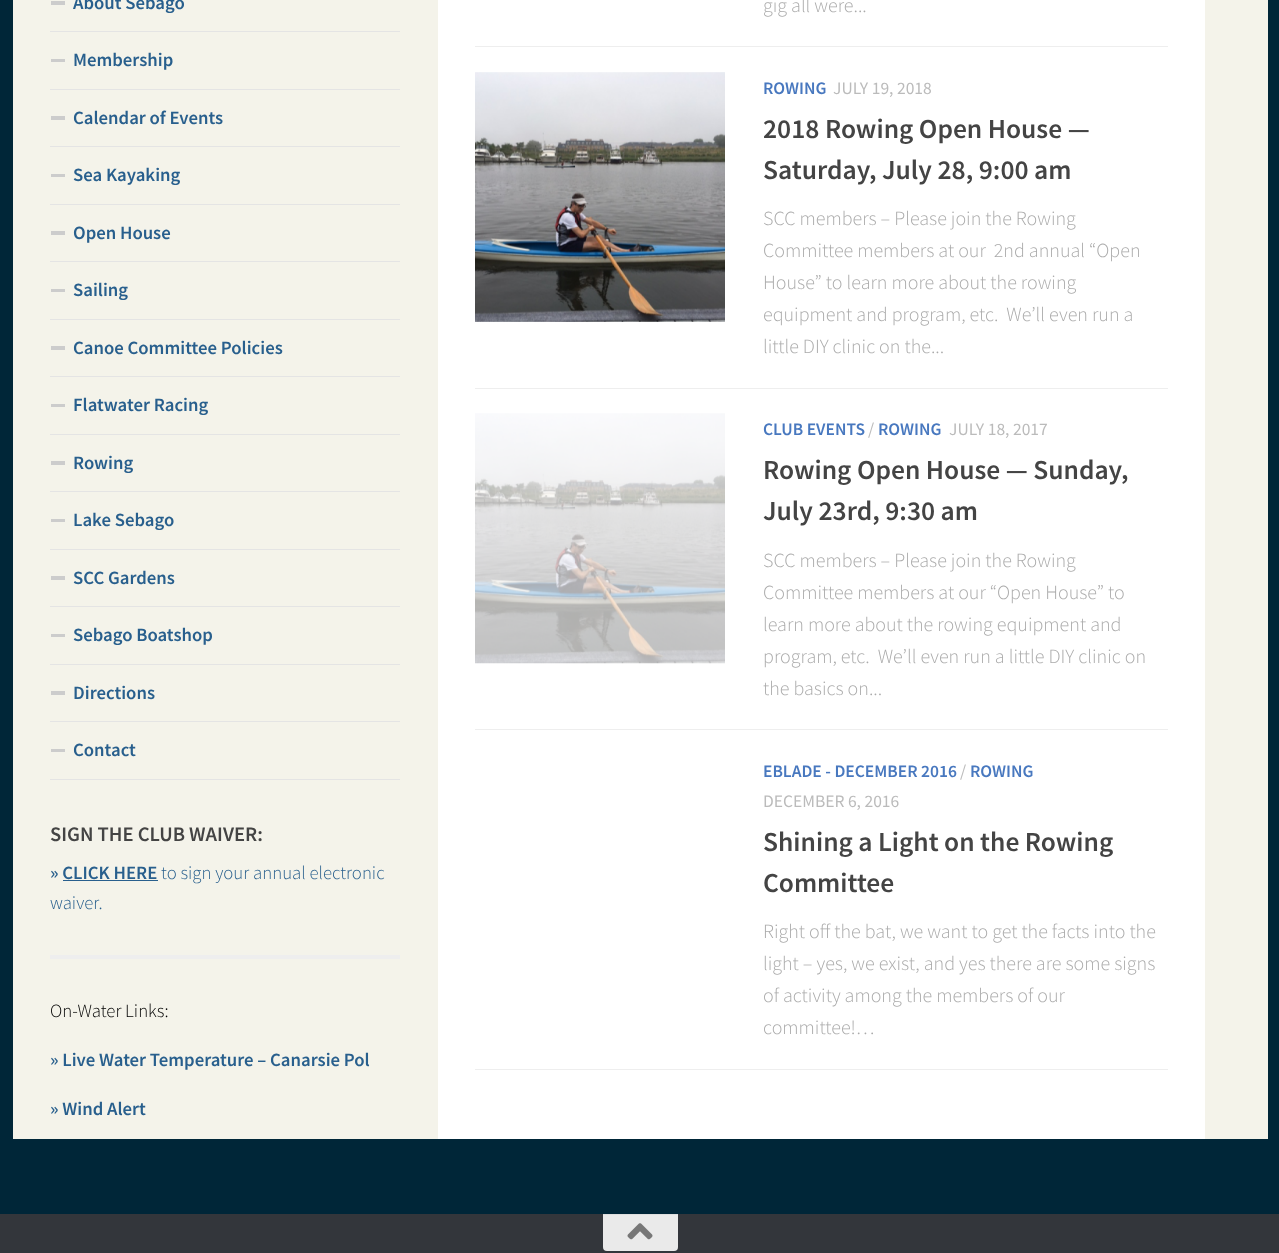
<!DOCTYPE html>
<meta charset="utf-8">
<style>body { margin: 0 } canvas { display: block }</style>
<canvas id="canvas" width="1279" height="1253"></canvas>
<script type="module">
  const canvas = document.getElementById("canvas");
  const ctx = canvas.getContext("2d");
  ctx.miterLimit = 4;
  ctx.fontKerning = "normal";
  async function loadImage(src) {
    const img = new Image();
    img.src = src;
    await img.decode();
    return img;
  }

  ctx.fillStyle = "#002638";
  ctx.fillRect(0, 0, 1279, 1253);
  ctx.fillStyle = "#ffffff";
  ctx.fillRect(438, 0, 767, 1139);
  ctx.fillStyle = "#f4f3ea";
  ctx.fillRect(13, 0, 425, 1139);
  ctx.fillStyle = "#e4e4e4";
  ctx.fillRect(50, 31, 350, 1);
  ctx.fillStyle = "#cccccc";
  ctx.fillRect(51, 1, 14, 4);
  ctx.font = "600 18.75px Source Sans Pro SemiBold";
  ctx.fillStyle = "#285f8d";
  ctx.fillText("About Sebago", 73, 9);
  ctx.fillStyle = "#e4e4e4";
  ctx.fillRect(50, 89, 350, 1);
  ctx.fillStyle = "#cccccc";
  ctx.fillRect(51, 59, 14, 3);
  ctx.fillStyle = "#285f8d";
  ctx.fillText("Membership", 73, 66);
  ctx.fillStyle = "#e4e4e4";
  ctx.fillRect(50, 146, 350, 1);
  ctx.fillStyle = "#cccccc";
  ctx.fillRect(51, 116, 14, 4);
  ctx.fillStyle = "#285f8d";
  ctx.fillText("Calendar of Events", 73, 124);
  ctx.fillStyle = "#e4e4e4";
  ctx.fillRect(50, 204, 350, 1);
  ctx.fillStyle = "#cccccc";
  ctx.fillRect(51, 174, 14, 3);
  ctx.fillStyle = "#285f8d";
  ctx.fillText("Sea Kayaking", 73, 181);
  ctx.fillStyle = "#e4e4e4";
  ctx.fillRect(50, 261, 350, 1);
  ctx.fillStyle = "#cccccc";
  ctx.fillRect(51, 231, 14, 4);
  ctx.fillStyle = "#285f8d";
  ctx.fillText("Open House", 73, 239);
  ctx.fillStyle = "#e4e4e4";
  ctx.fillRect(50, 319, 350, 1);
  ctx.fillStyle = "#cccccc";
  ctx.fillRect(51, 289, 14, 3);
  ctx.fillStyle = "#285f8d";
  ctx.fillText("Sailing", 73, 296);
  ctx.fillStyle = "#e4e4e4";
  ctx.fillRect(50, 376, 350, 1);
  ctx.fillStyle = "#cccccc";
  ctx.fillRect(51, 346, 14, 4);
  ctx.fillStyle = "#285f8d";
  ctx.fillText("Canoe Committee Policies", 73, 354);
  ctx.fillStyle = "#e4e4e4";
  ctx.fillRect(50, 434, 350, 1);
  ctx.fillStyle = "#cccccc";
  ctx.fillRect(51, 404, 14, 3);
  ctx.fillStyle = "#285f8d";
  ctx.fillText("Flatwater Racing", 73, 411);
  ctx.fillStyle = "#e4e4e4";
  ctx.fillRect(50, 491, 350, 1);
  ctx.fillStyle = "#cccccc";
  ctx.fillRect(51, 461, 14, 4);
  ctx.fillStyle = "#285f8d";
  ctx.fillText("Rowing", 73, 469);
  ctx.fillStyle = "#e4e4e4";
  ctx.fillRect(50, 549, 350, 1);
  ctx.fillStyle = "#cccccc";
  ctx.fillRect(51, 519, 14, 3);
  ctx.fillStyle = "#285f8d";
  ctx.fillText("Lake Sebago", 73, 526);
  ctx.fillStyle = "#e4e4e4";
  ctx.fillRect(50, 606, 350, 1);
  ctx.fillStyle = "#cccccc";
  ctx.fillRect(51, 576, 14, 4);
  ctx.fillStyle = "#285f8d";
  ctx.fillText("SCC Gardens", 73, 584);
  ctx.fillStyle = "#e4e4e4";
  ctx.fillRect(50, 664, 350, 1);
  ctx.fillStyle = "#cccccc";
  ctx.fillRect(51, 634, 14, 3);
  ctx.fillStyle = "#285f8d";
  ctx.fillText("Sebago Boatshop", 73, 641);
  ctx.fillStyle = "#e4e4e4";
  ctx.fillRect(50, 721, 350, 1);
  ctx.fillStyle = "#cccccc";
  ctx.fillRect(51, 691, 14, 4);
  ctx.fillStyle = "#285f8d";
  ctx.fillText("Directions", 73, 699);
  ctx.fillStyle = "#e4e4e4";
  ctx.fillRect(50, 779, 350, 1);
  ctx.fillStyle = "#cccccc";
  ctx.fillRect(51, 749, 14, 3);
  ctx.fillStyle = "#285f8d";
  ctx.fillText("Contact", 73, 756);
  ctx.font = "600 20.6px Source Sans Pro SemiBold";
  ctx.fillStyle = "#444444";
  ctx.fillText("SIGN THE CLUB WAIVER:", 50, 841);
  ctx.font = "600 18.75px Source Sans Pro SemiBold";
  ctx.fillStyle = "#285f8d";
  ctx.fillText("» CLICK HERE", 50, 879);
  ctx.fillRect(63, 880, 95, 1);
  ctx.font = "300 18.75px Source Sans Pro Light";
  ctx.fillText("to sign your annual electronic", 161, 879);
  ctx.fillText("waiver.", 50, 909);
  ctx.fillStyle = "#eeeeee";
  ctx.fillRect(50, 955, 350, 4);
  ctx.fillStyle = "#000000";
  ctx.fillText("On-Water Links:", 50, 1017);
  ctx.font = "600 18.75px Source Sans Pro SemiBold";
  ctx.fillStyle = "#285f8d";
  ctx.fillText("» Live Water Temperature – Canarsie Pol", 50, 1066);
  ctx.fillText("» Wind Alert", 50, 1115);
  ctx.fillStyle = "#eeeeee";
  ctx.fillRect(475, 46, 693, 1);
  ctx.font = "300 20px Source Sans Pro Light";
  ctx.fillStyle = "#aaaaaa";
  ctx.fillText("gig all were...", 763, 12);
  ctx.fillStyle = "#eeeeee";
  ctx.fillRect(475, 388, 693, 1);
  ctx.drawImage(await loadImage("img1.png"), 475, 72, 250, 250);
  ctx.font = "600 17.5px Source Sans Pro SemiBold";
  ctx.fillStyle = "#4878bf";
  ctx.fillText("ROWING", 763, 94);
  ctx.font = "17.5px Source Sans Pro";
  ctx.fillStyle = "#bbbbbb";
  ctx.fillText("JULY 19, 2018", 833, 94);
  ctx.font = "600 27.5px Source Sans Pro SemiBold";
  ctx.fillStyle = "#444444";
  ctx.fillText("2018 Rowing Open House —", 763, 138);
  ctx.fillText("Saturday, July 28, 9:00 am", 763, 179);
  ctx.font = "300 20px Source Sans Pro Light";
  ctx.fillStyle = "#aaaaaa";
  ctx.fillText("SCC members – Please join the Rowing", 763, 225);
  ctx.fillText("Committee members at our  2nd annual “Open", 763, 257);
  ctx.fillText("House” to learn more about the rowing", 763, 289);
  ctx.fillText("equipment and program, etc.  We’ll even run a", 763, 321);
  ctx.fillText("little DIY clinic on the...", 763, 353);
  ctx.fillStyle = "#eeeeee";
  ctx.fillRect(475, 729, 693, 1);
  ctx.drawImage(await loadImage("img2.png"), 475, 413, 250, 251);
  ctx.font = "600 17.5px Source Sans Pro SemiBold";
  ctx.fillStyle = "#4878bf";
  ctx.fillText("CLUB EVENTS", 763, 435);
  ctx.font = "17.5px Source Sans Pro";
  ctx.fillStyle = "#bbbbbb";
  ctx.fillText("/", 868, 435);
  ctx.font = "600 17.5px Source Sans Pro SemiBold";
  ctx.fillStyle = "#4878bf";
  ctx.fillText("ROWING", 878, 435);
  ctx.font = "17.5px Source Sans Pro";
  ctx.fillStyle = "#bbbbbb";
  ctx.fillText("JULY 18, 2017", 949, 435);
  ctx.font = "600 27.5px Source Sans Pro SemiBold";
  ctx.fillStyle = "#444444";
  ctx.fillText("Rowing Open House — Sunday,", 763, 479);
  ctx.fillText("July 23rd, 9:30 am", 763, 520);
  ctx.font = "300 20px Source Sans Pro Light";
  ctx.fillStyle = "#aaaaaa";
  ctx.fillText("SCC members – Please join the Rowing", 763, 567);
  ctx.fillText("Committee members at our “Open House” to", 763, 599);
  ctx.fillText("learn more about the rowing equipment and", 763, 631);
  ctx.fillText("program, etc.  We’ll even run a little DIY clinic on", 763, 663);
  ctx.fillText("the basics on...", 763, 695);
  ctx.fillStyle = "#eeeeee";
  ctx.fillRect(475, 1069, 693, 1);
  ctx.font = "600 17.5px Source Sans Pro SemiBold";
  ctx.fillStyle = "#4878bf";
  ctx.fillText("EBLADE - DECEMBER 2016", 763, 777);
  ctx.font = "17.5px Source Sans Pro";
  ctx.fillStyle = "#bbbbbb";
  ctx.fillText("/", 960, 777);
  ctx.font = "600 17.5px Source Sans Pro SemiBold";
  ctx.fillStyle = "#4878bf";
  ctx.fillText("ROWING", 970, 777);
  ctx.font = "17.5px Source Sans Pro";
  ctx.fillStyle = "#bbbbbb";
  ctx.fillText("DECEMBER 6, 2016", 763, 807);
  ctx.font = "600 27.5px Source Sans Pro SemiBold";
  ctx.fillStyle = "#444444";
  ctx.fillText("Shining a Light on the Rowing", 763, 851);
  ctx.fillText("Committee", 763, 892);
  ctx.font = "300 20px Source Sans Pro Light";
  ctx.fillStyle = "#aaaaaa";
  ctx.fillText("Right off the bat, we want to get the facts into the", 763, 938);
  ctx.fillText("light – yes, we exist, and yes there are some signs", 763, 970);
  ctx.fillText("of activity among the members of our", 763, 1002);
  ctx.fillText("committee!…", 763, 1034);
  ctx.fillStyle = "#f4f3ea";
  ctx.fillRect(1205, 0, 63, 1139);
  ctx.fillStyle = "#33363b";
  ctx.fillRect(0, 1214, 1279, 39);
  ctx.fillStyle = "#eaeaea";
  ctx.beginPath();
  ctx.roundRect(603, 1214, 75, 37, [0, 0, 4, 4]);
  ctx.fill();
  ctx.fillStyle = "#dedede";
  ctx.fillRect(603, 1214, 75, 1);
  ctx.drawImage(await loadImage("img3.png"), 627, 1223, 26, 17);
</script>
